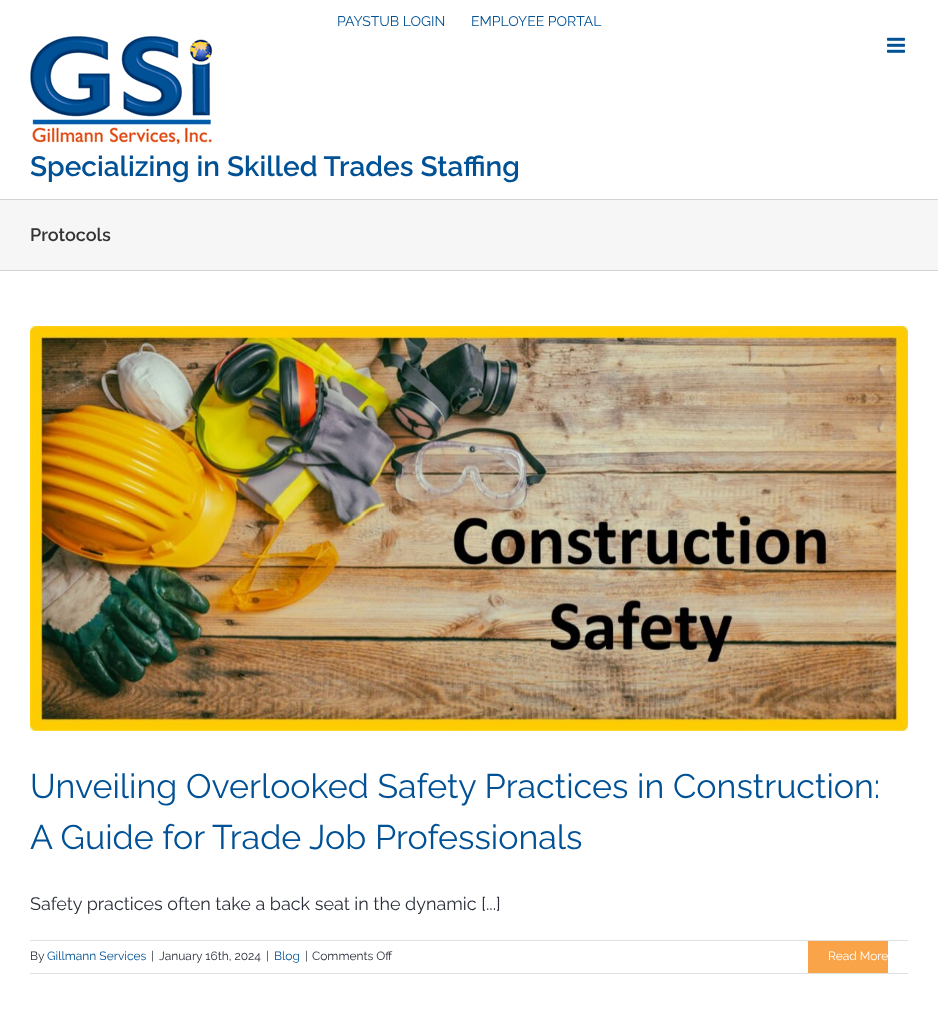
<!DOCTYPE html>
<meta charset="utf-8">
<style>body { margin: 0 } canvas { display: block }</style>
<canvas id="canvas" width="938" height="1021"></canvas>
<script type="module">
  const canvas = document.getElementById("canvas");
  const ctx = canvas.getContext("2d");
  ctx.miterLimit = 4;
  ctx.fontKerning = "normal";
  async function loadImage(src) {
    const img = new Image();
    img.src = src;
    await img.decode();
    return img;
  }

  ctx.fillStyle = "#ffffff";
  ctx.fillRect(0, 0, 938, 1021);
  ctx.font = "14px Raleway";
  ctx.fillStyle = "#005195";
  ctx.fillText("PAYSTUB LOGIN", 337, 26);
  ctx.fillText("EMPLOYEE PORTAL", 471, 26);
  ctx.drawImage(await loadImage("img1.png"), 887, 37, 18, 16);
  ctx.drawImage(await loadImage("img2.png"), 30, 36, 183, 109);
  ctx.font = "600 28px Raleway";
  ctx.fillText("Specializing in Skilled Trades Staffing", 30, 176);
  ctx.fillStyle = "#f6f6f6";
  ctx.fillRect(0, 200, 938, 70);
  ctx.fillStyle = "#d2d3d4";
  ctx.fillRect(0, 199, 938, 1);
  ctx.fillRect(0, 270, 938, 1);
  ctx.font = "600 18px Raleway";
  ctx.fillStyle = "#333333";
  ctx.fillText("Protocols", 30, 241);
  ctx.drawImage(await loadImage("img3.png"), 30, 326, 878, 405);
  ctx.font = "34px Raleway";
  ctx.fillStyle = "#005195";
  ctx.fillText("Unveiling Overlooked Safety Practices in Construction:", 30, 798);
  ctx.fillText("A Guide for Trade Job Professionals", 30, 849);
  ctx.font = "18px Raleway";
  ctx.fillStyle = "#2a2e39";
  ctx.fillText("Safety practices often take a back seat in the dynamic [...]", 30, 910);
  ctx.fillStyle = "#e0dede";
  ctx.fillRect(30, 940, 878, 1);
  ctx.fillRect(30, 973, 878, 1);
  ctx.font = "12px Raleway";
  ctx.fillStyle = "#2a2e39";
  ctx.fillText("By", 30, 960);
  ctx.fillStyle = "#005195";
  ctx.fillText("Gillmann Services", 47, 960);
  ctx.fillStyle = "#2a2e39";
  ctx.fillText("|", 151, 960);
  ctx.fillText("January 16th, 2024", 159, 960);
  ctx.fillText("|", 266, 960);
  ctx.fillStyle = "#005195";
  ctx.fillText("Blog", 274, 960);
  ctx.fillStyle = "#2a2e39";
  ctx.fillText("|", 305, 960);
  ctx.fillText("Comments Off", 312, 960);
  ctx.fillStyle = "#f9a448";
  ctx.fillRect(808, 941, 80, 32);
  ctx.fillStyle = "#ffffff";
  ctx.fillText("Read More", 828, 960);
</script>
